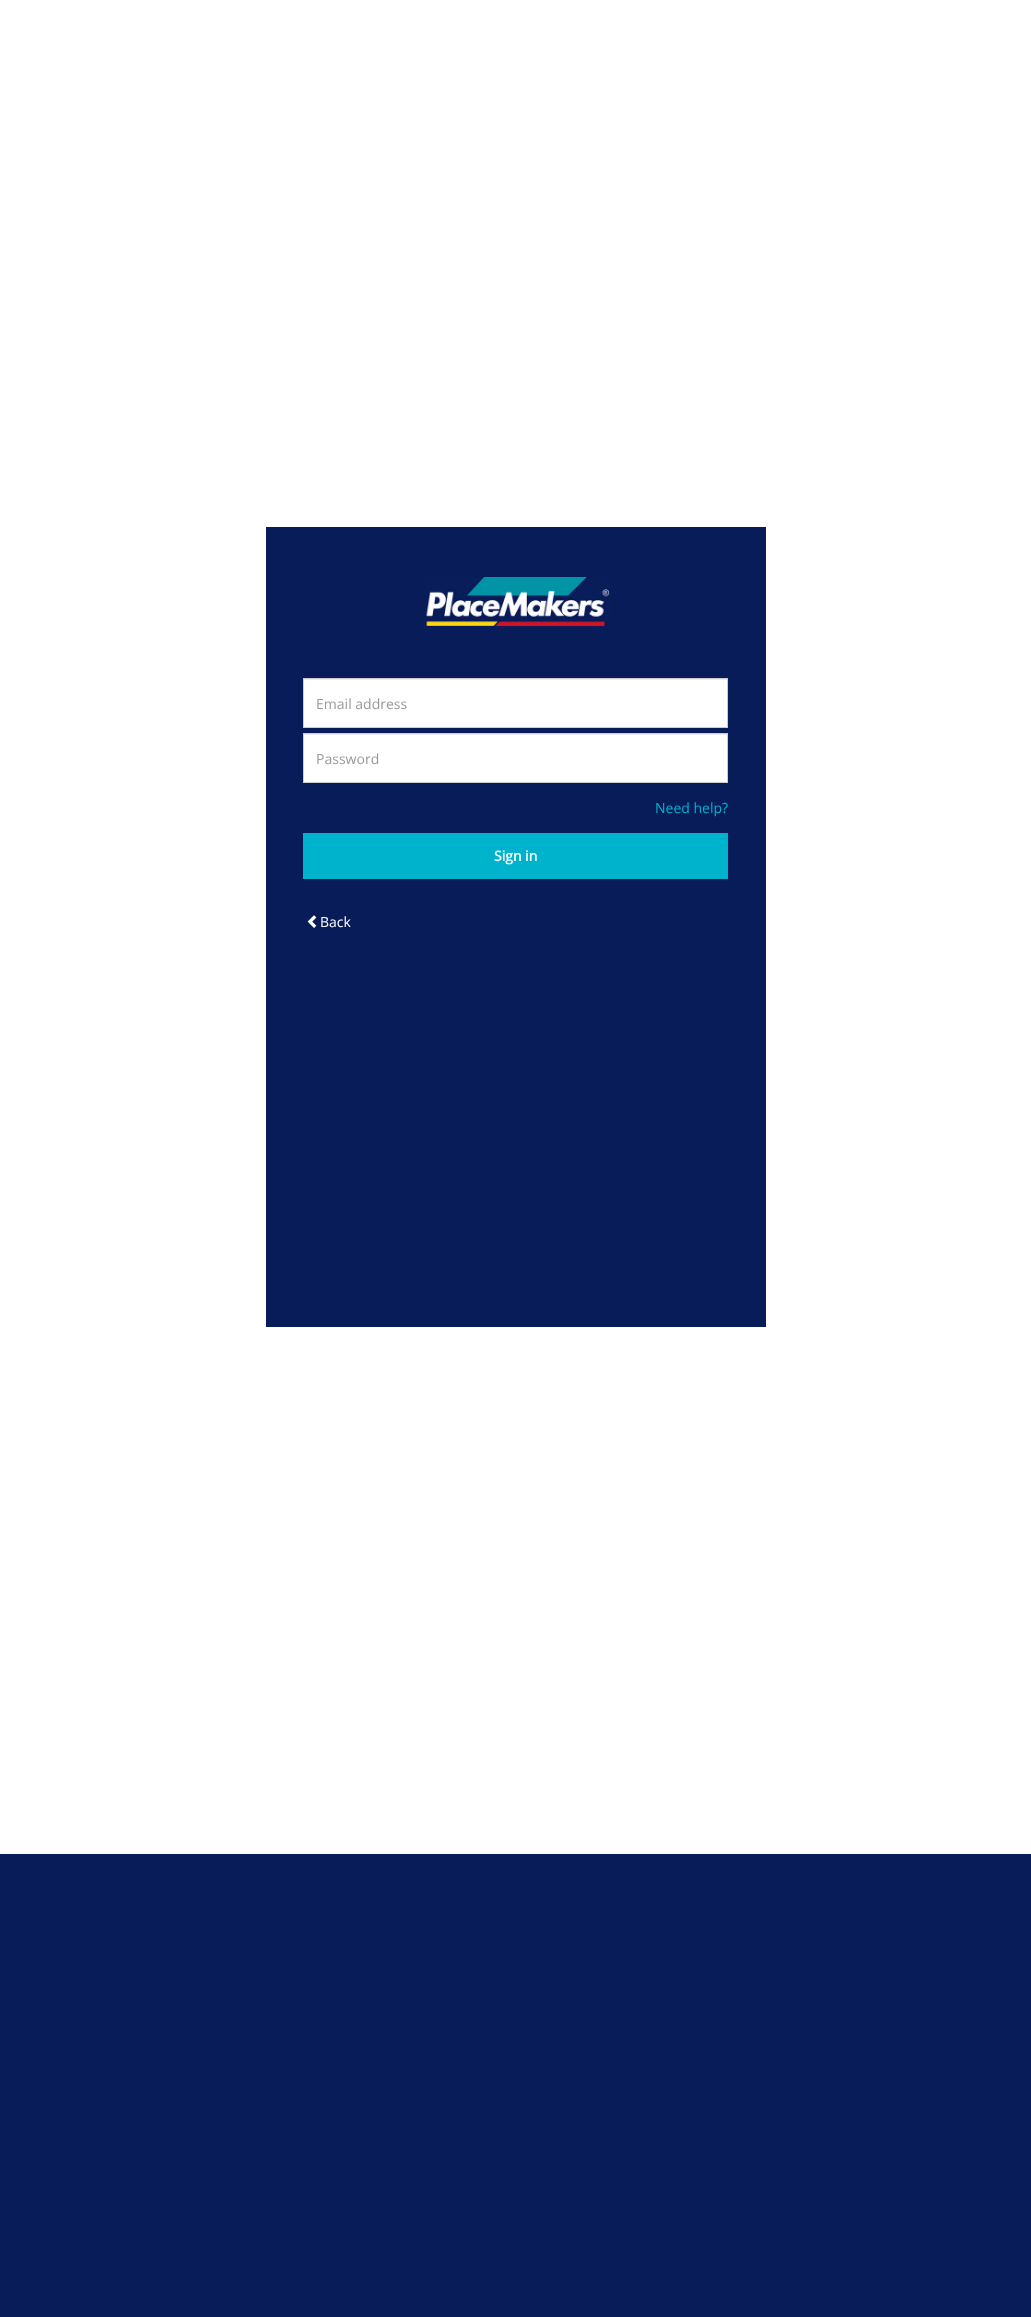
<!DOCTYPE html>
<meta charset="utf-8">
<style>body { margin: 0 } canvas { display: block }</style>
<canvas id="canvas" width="1031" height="2317"></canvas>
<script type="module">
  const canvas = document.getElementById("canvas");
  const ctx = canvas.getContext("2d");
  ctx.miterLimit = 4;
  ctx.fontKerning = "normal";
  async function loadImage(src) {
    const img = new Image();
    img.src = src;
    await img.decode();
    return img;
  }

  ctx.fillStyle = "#091c5a";
  ctx.fillRect(0, 0, 1031, 2317);
  ctx.fillStyle = "#ffffff";
  ctx.fillRect(0, 0, 1031, 1854);
  ctx.fillStyle = "#091c5a";
  ctx.fillRect(266, 527, 500, 800);
  ctx.drawImage(await loadImage("img1.png"), 425, 577, 185, 51);
  ctx.fillStyle = "#ffffff";
  ctx.fillRect(304, 680, 423, 47);
  ctx.fillStyle = "#ececec";
  ctx.fillRect(304, 679, 423, 1);
  ctx.strokeStyle = "#cccccc";
  ctx.strokeRect(303.5, 678.5, 424, 49);
  ctx.font = "14px Open Sans";
  ctx.fillStyle = "#999999";
  ctx.fillText("Email address", 316, 709);
  ctx.fillStyle = "#ffffff";
  ctx.fillRect(304, 735, 423, 47);
  ctx.fillStyle = "#ececec";
  ctx.fillRect(304, 734, 423, 1);
  ctx.strokeRect(303.5, 733.5, 424, 49);
  ctx.fillStyle = "#999999";
  ctx.fillText("Password", 316, 764);
  ctx.fillStyle = "#00b3cc";
  ctx.fillText("Need help?", 655, 813);
  ctx.fillRect(303, 833, 425, 46);
  ctx.font = "bold 14px Open Sans";
  ctx.fillStyle = "#ffffff";
  ctx.fillText("Sign in", 494, 861);
  ctx.drawImage(await loadImage("img2.png"), 307, 915, 10, 13);
  ctx.font = "14px Open Sans";
  ctx.fillText("Back", 320, 927);
</script>
